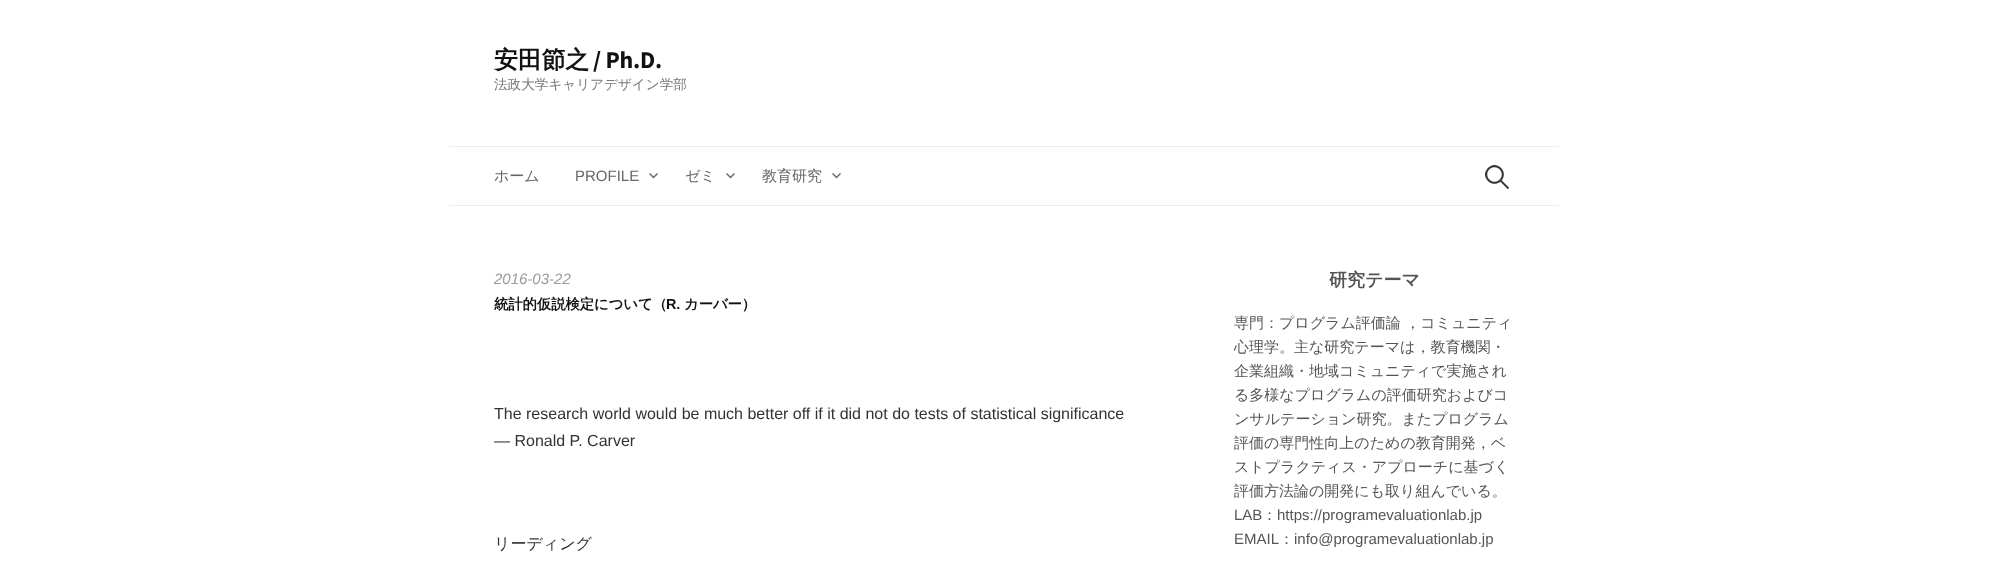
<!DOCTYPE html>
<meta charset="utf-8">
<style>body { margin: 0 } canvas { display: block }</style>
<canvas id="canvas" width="2007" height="588"></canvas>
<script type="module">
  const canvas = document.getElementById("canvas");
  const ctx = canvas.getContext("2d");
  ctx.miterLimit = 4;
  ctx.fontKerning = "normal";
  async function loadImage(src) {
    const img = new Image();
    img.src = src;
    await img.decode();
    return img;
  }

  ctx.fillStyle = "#ffffff";
  ctx.fillRect(0, 0, 2007, 588);
  ctx.fillStyle = "#eeeeee";
  ctx.fillRect(449, 146, 1110, 1);
  ctx.letterSpacing = "-0.25px";
  ctx.font = "bold 24px WenQuanYi Zen Hei";
  ctx.fillStyle = "#111111";
  ctx.fillText("安田節之", 494, 68);
  ctx.font = "bold 24px Source Sans Pro";
  ctx.fillText("/ Ph.D.", 593, 68);
  ctx.letterSpacing = "0px";
  ctx.font = "500 13.6px WenQuanYi Zen Hei";
  ctx.fillStyle = "#777777";
  ctx.fillText("法政大学キャリアデザイン学部", 494, 89);
  ctx.fillStyle = "#eeeeee";
  ctx.fillRect(449, 205, 1110, 1);
  ctx.font = "500 15px WenQuanYi Zen Hei";
  ctx.fillStyle = "#666666";
  ctx.fillText("ホーム", 494, 181);
  ctx.font = "15px Liberation Sans";
  ctx.fillText("PROFILE", 575, 181);
  ctx.drawImage(await loadImage("img1.png"), 649, 173, 9, 6);
  ctx.font = "500 15px WenQuanYi Zen Hei";
  ctx.fillText("ゼミ", 685, 181);
  ctx.drawImage(await loadImage("img1.png"), 726, 173, 9, 6);
  ctx.fillText("教育研究", 762, 181);
  ctx.drawImage(await loadImage("img1.png"), 832, 173, 9, 6);
  ctx.drawImage(await loadImage("img2.png"), 1485, 165, 24, 24);
  ctx.font = "italic 15px Liberation Sans";
  ctx.fillStyle = "#999999";
  ctx.fillText("2016-03-22", 494, 284);
  ctx.letterSpacing = "-0.1px";
  ctx.font = "bold 14.4px WenQuanYi Zen Hei";
  ctx.fillStyle = "#111111";
  ctx.fillText("統計的仮説検定について（", 494, 309);
  ctx.font = "bold 14.4px Liberation Sans";
  ctx.fillText("R.", 666, 309);
  ctx.font = "bold 14.4px WenQuanYi Zen Hei";
  ctx.fillText("カーバー）", 684, 309);
  ctx.letterSpacing = "0px";
  ctx.font = "16px Liberation Sans";
  ctx.fillStyle = "#333333";
  ctx.fillText("The research world would be much better off if it did not do tests of statistical significance", 494, 419);
  ctx.fillText("— Ronald P. Carver", 494, 446);
  ctx.font = "500 16px WenQuanYi Zen Hei";
  ctx.fillText("リーディング", 494, 549);
  ctx.font = "bold 18px WenQuanYi Zen Hei";
  ctx.fillStyle = "#555555";
  ctx.fillText("研究テーマ", 1329, 286);
  ctx.font = "500 15px WenQuanYi Zen Hei";
  ctx.fillText("専門：プログラム評価論 ，コミュニティ", 1234, 328);
  ctx.fillText("心理学。主な研究テーマは，教育機関・", 1234, 352);
  ctx.fillText("企業組織・地域コミュニティで実施され", 1234, 376);
  ctx.fillText("る多様なプログラムの評価研究およびコ", 1234, 400);
  ctx.fillText("ンサルテーション研究。またプログラム", 1234, 424);
  ctx.fillText("評価の専門性向上のための教育開発，ベ", 1234, 448);
  ctx.fillText("ストプラクティス・アプローチに基づく", 1234, 472);
  ctx.fillText("評価方法論の開発にも取り組んでいる。", 1234, 496);
  ctx.font = "15px Liberation Sans";
  ctx.fillText("LAB", 1234, 520);
  ctx.font = "500 15px WenQuanYi Zen Hei";
  ctx.fillText("：", 1262, 520);
  ctx.font = "15px Liberation Sans";
  ctx.fillText("https://programevaluationlab.jp", 1277, 520);
  ctx.fillText("EMAIL", 1234, 544);
  ctx.font = "500 15px WenQuanYi Zen Hei";
  ctx.fillText("：", 1279, 544);
  ctx.font = "15px Liberation Sans";
  ctx.fillText("info@programevaluationlab.jp", 1294, 544);
</script>
